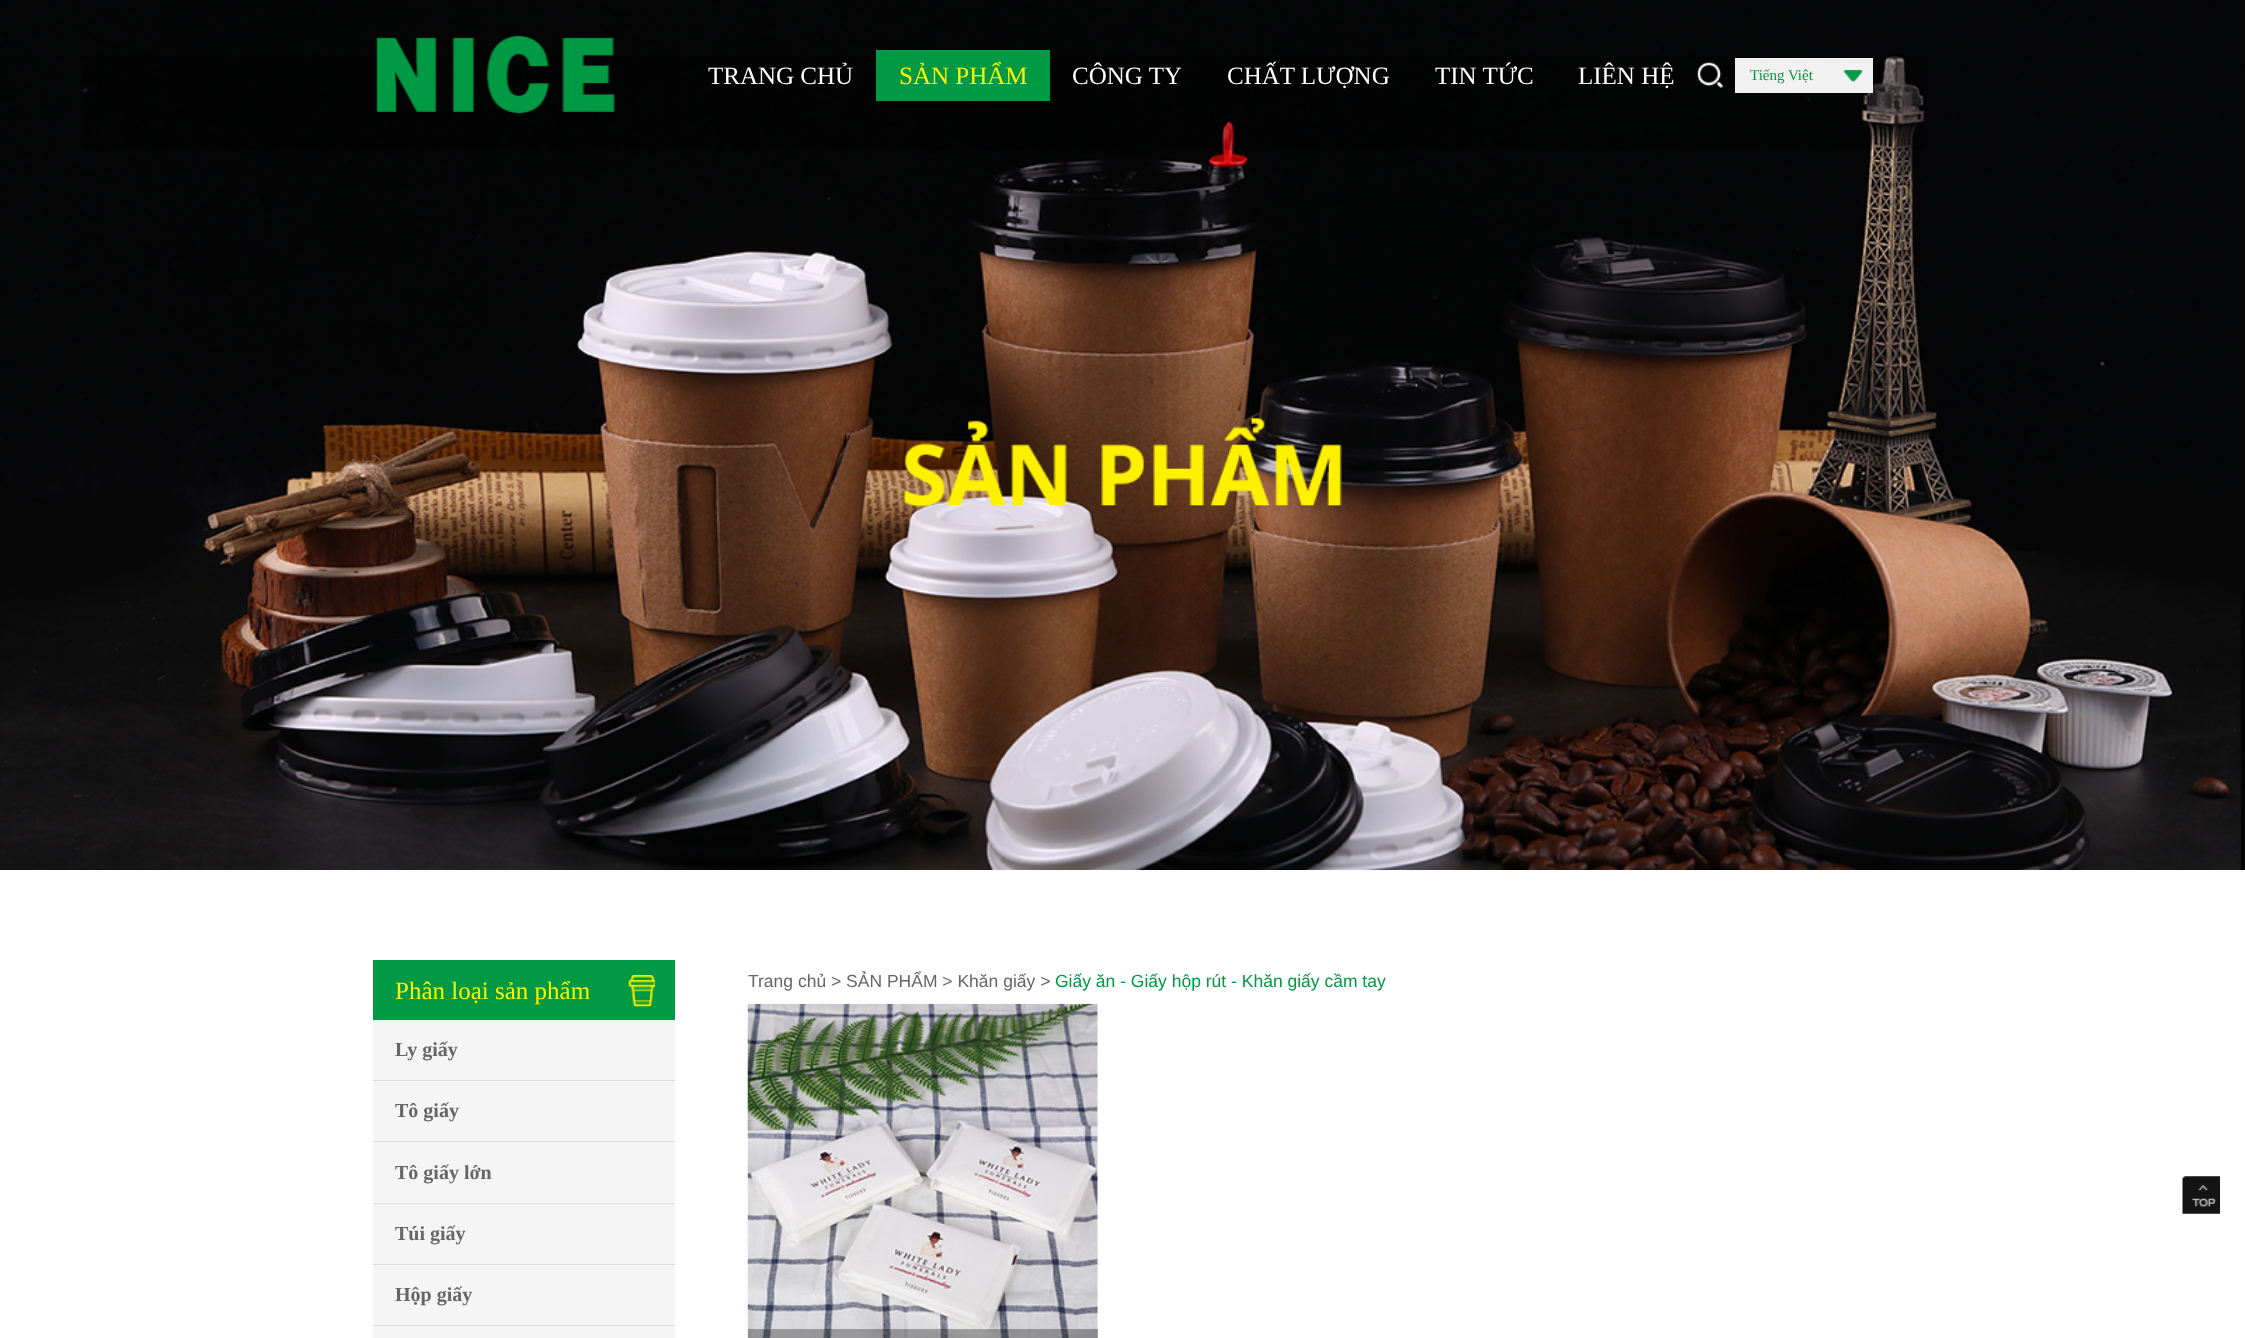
<!DOCTYPE html>
<meta charset="utf-8">
<style>body { margin: 0 } canvas { display: block }</style>
<canvas id="canvas" width="2245" height="1338"></canvas>
<script type="module">
  const canvas = document.getElementById("canvas");
  const ctx = canvas.getContext("2d");
  ctx.miterLimit = 4;
  ctx.fontKerning = "normal";
  async function loadImage(src) {
    const img = new Image();
    img.src = src;
    await img.decode();
    return img;
  }

  ctx.fillStyle = "#ffffff";
  ctx.fillRect(0, 0, 2245, 1338);
  ctx.drawImage(await loadImage("img1.png"), 0, 0, 2245, 870);
  ctx.fillStyle = "rgba(0, 0, 0, 0.2)";
  ctx.fillRect(82, 56, 1843, 94);
  ctx.drawImage(await loadImage("img2.png"), 376, 35, 239, 79);
  ctx.font = "25px Liberation Serif";
  ctx.fillStyle = "#ffffff";
  ctx.fillText("TRANG CHỦ", 708, 84);
  ctx.fillStyle = "#009944";
  ctx.fillRect(876, 50, 174, 51);
  ctx.fillStyle = "#fff100";
  ctx.fillText("SẢN PHẨM", 899, 84);
  ctx.fillStyle = "#ffffff";
  ctx.fillText("CÔNG TY", 1072, 84);
  ctx.fillText("CHẤT LƯỢNG", 1227, 84);
  ctx.fillText("TIN TỨC", 1435, 84);
  ctx.fillText("LIÊN HỆ", 1578, 84);
  ctx.drawImage(await loadImage("img3.png"), 1697, 62, 26, 26);
  ctx.fillStyle = "#f1f1f1";
  ctx.fillRect(1735, 58, 138, 35);
  ctx.font = "15px Liberation Serif";
  ctx.fillStyle = "#009944";
  ctx.fillText("Tiếng Việt", 1750, 80);
  ctx.drawImage(await loadImage("img4.png"), 1843, 70, 20, 12);
  ctx.fillStyle = "#009a44";
  ctx.fillRect(373, 960, 302, 60);
  ctx.font = "25px Liberation Serif";
  ctx.fillStyle = "#fff100";
  ctx.fillText("Phân loại sản phẩm", 395, 999);
  ctx.drawImage(await loadImage("img5.png"), 628, 975, 27, 32);
  ctx.fillStyle = "#f5f5f5";
  ctx.fillRect(373, 1020, 302, 318);
  ctx.fillStyle = "#dddddd";
  ctx.fillRect(373, 1080, 302, 1);
  ctx.font = "bold 20px Liberation Serif";
  ctx.fillStyle = "#666666";
  ctx.fillText("Ly giấy", 395, 1056);
  ctx.fillStyle = "#dddddd";
  ctx.fillRect(373, 1141, 302, 1);
  ctx.fillStyle = "#666666";
  ctx.fillText("Tô giấy", 395, 1117);
  ctx.fillStyle = "#dddddd";
  ctx.fillRect(373, 1203, 302, 1);
  ctx.fillStyle = "#666666";
  ctx.fillText("Tô giấy lớn", 395, 1179);
  ctx.fillStyle = "#dddddd";
  ctx.fillRect(373, 1264, 302, 1);
  ctx.fillStyle = "#666666";
  ctx.fillText("Túi giấy", 395, 1240);
  ctx.fillStyle = "#dddddd";
  ctx.fillRect(373, 1325, 302, 1);
  ctx.fillStyle = "#666666";
  ctx.fillText("Hộp giấy", 395, 1301);
  ctx.font = "17.5px Liberation Sans";
  ctx.fillText("Trang chủ > SẢN PHẨM > Khăn giấy >", 748, 987);
  ctx.fillStyle = "#009944";
  ctx.fillText("Giấy ăn - Giấy hộp rút - Khăn giấy cầm tay", 1055, 987);
  ctx.drawImage(await loadImage("img6.png"), 747, 1003, 351, 335);
  ctx.fillStyle = "rgba(0, 0, 0, 0.3)";
  ctx.fillRect(748, 1329, 350, 9);
  ctx.drawImage(await loadImage("img7.png"), 2182, 1176, 38, 38);
</script>
